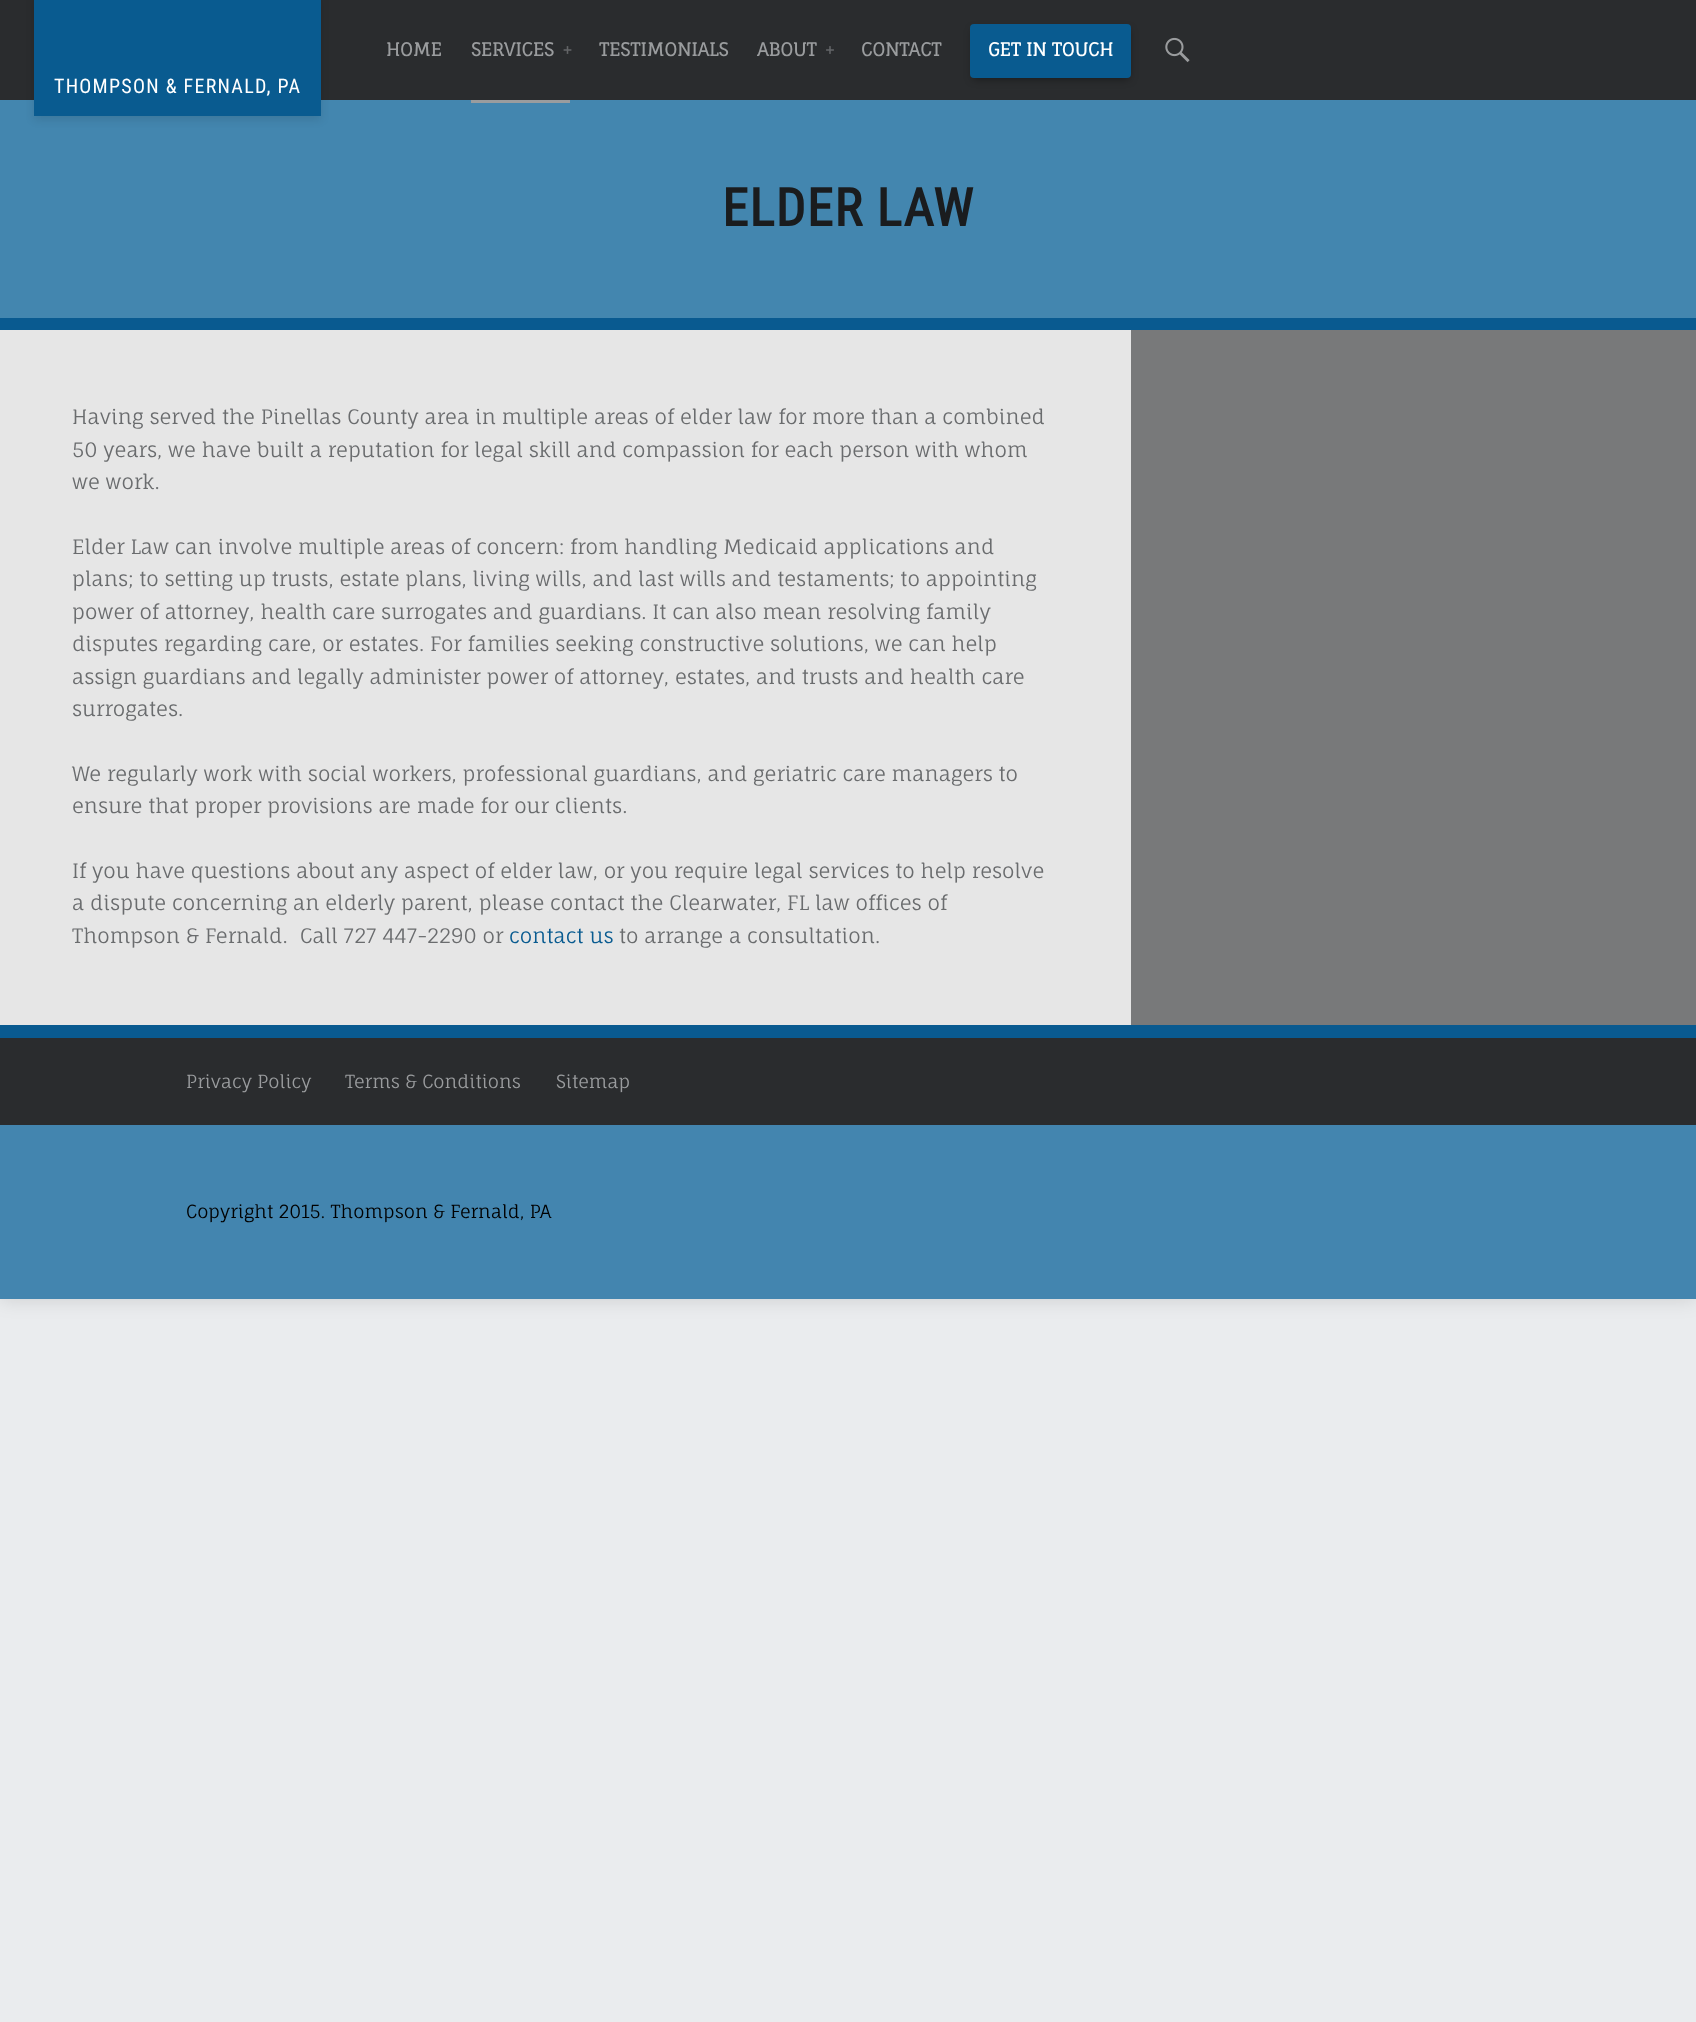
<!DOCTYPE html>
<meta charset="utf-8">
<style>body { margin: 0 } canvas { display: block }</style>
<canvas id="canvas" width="1696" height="2022"></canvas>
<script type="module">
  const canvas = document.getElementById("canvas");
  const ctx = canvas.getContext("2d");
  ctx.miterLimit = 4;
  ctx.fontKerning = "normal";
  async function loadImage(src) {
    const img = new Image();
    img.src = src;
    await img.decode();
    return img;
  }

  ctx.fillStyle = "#eaecee";
  ctx.fillRect(0, 0, 1696, 2022);
  ctx.fillStyle = "rgba(0, 0, 0, 0.13)";
  ctx.filter = "blur(10px)";
  ctx.beginPath();
  ctx.rect(0, 0, 1696, 1299);
  ctx.fill();
  ctx.filter = "none";
  ctx.fillStyle = "#2a2c2e";
  ctx.fillRect(0, 0, 1696, 100);
  ctx.font = "bold 18px Fauna One";
  ctx.fillStyle = "#9a9c9e";
  ctx.fillText("HOME", 386, 56);
  ctx.fillStyle = "#4386af";
  ctx.fillRect(0, 100, 1696, 218);
  ctx.fillStyle = "#9a9c9e";
  ctx.beginPath();
  ctx.moveTo(471, 3);
  ctx.lineTo(471, 103);
  ctx.lineTo(570, 103);
  ctx.lineTo(570, 100);
  ctx.lineTo(471, 100);
  ctx.closePath();
  ctx.fill();
  ctx.fillText("SERVICES", 471, 56);
  ctx.drawImage(await loadImage("img1.png"), 563, 46, 9, 8);
  ctx.fillText("TESTIMONIALS", 599, 56);
  ctx.fillText("ABOUT", 757, 56);
  ctx.drawImage(await loadImage("img2.png"), 826, 46, 8, 8);
  ctx.fillText("CONTACT", 861, 56);
  ctx.fillStyle = "rgba(0, 0, 0, 0.4)";
  ctx.filter = "blur(4px)";
  ctx.beginPath();
  ctx.roundRect(973, 30, 156, 49, 1);
  ctx.fill();
  ctx.filter = "none";
  ctx.fillStyle = "#095b90";
  ctx.beginPath();
  ctx.roundRect(970, 24, 161, 54, 4);
  ctx.fill();
  ctx.fillStyle = "#ffffff";
  ctx.fillText("GET IN TOUCH", 988, 56);
  ctx.drawImage(await loadImage("img3.png"), 1165, 37, 25, 26);
  ctx.fillStyle = "rgba(0, 0, 0, 0.1)";
  ctx.filter = "blur(4px)";
  ctx.beginPath();
  ctx.rect(34, 0, 287, 120);
  ctx.fill();
  ctx.filter = "none";
  ctx.fillStyle = "#095b90";
  ctx.fillRect(34, 0, 287, 116);
  ctx.letterSpacing = "1.25px";
  ctx.font = "20px Roboto Condensed";
  ctx.fillStyle = "#ffffff";
  ctx.fillText("THOMPSON & FERNALD, PA", 54, 93);
  ctx.font = "bold 52.5px Roboto Condensed";
  ctx.fillStyle = "#1a1c1e";
  ctx.fillText("ELDER LAW", 722, 226);
  ctx.fillStyle = "#095a90";
  ctx.fillRect(0, 318, 1696, 12);
  ctx.fillRect(0, 1025, 1696, 13);
  ctx.fillStyle = "#e6e6e6";
  ctx.fillRect(0, 330, 1131, 695);
  ctx.letterSpacing = "0px";
  ctx.font = "20px Fauna One";
  ctx.fillStyle = "#6a6c6e";
  ctx.fillText("Having served the Pinellas County area in multiple areas of elder law for more than a combined", 72, 424);
  ctx.fillText("50 years, we have built a reputation for legal skill and compassion for each person with whom", 72, 457);
  ctx.fillText("we work.", 72, 489);
  ctx.fillText("Elder Law can involve multiple areas of concern: from handling Medicaid applications and", 72, 554);
  ctx.fillText("plans; to setting up trusts, estate plans, living wills, and last wills and testaments; to appointing", 72, 586);
  ctx.fillText("power of attorney, health care surrogates and guardians. It can also mean resolving family", 72, 619);
  ctx.fillText("disputes regarding care, or estates. For families seeking constructive solutions, we can help", 72, 651);
  ctx.fillText("assign guardians and legally administer power of attorney, estates, and trusts and health care", 72, 684);
  ctx.fillText("surrogates.", 72, 716);
  ctx.fillText("We regularly work with social workers, professional guardians, and geriatric care managers to", 72, 781);
  ctx.fillText("ensure that proper provisions are made for our clients.", 72, 813);
  ctx.fillText("If you have questions about any aspect of elder law, or you require legal services to help resolve", 72, 878);
  ctx.fillText("a dispute concerning an elderly parent, please contact the Clearwater, FL law offices of", 72, 910);
  ctx.fillText("Thompson & Fernald.", 72, 943);
  ctx.fillText("Call 727 447-2290 or", 300, 943);
  ctx.fillStyle = "#095b90";
  ctx.fillText("contact us", 509, 943);
  ctx.fillStyle = "#6a6c6e";
  ctx.fillText("to arrange a consultation.", 619, 943);
  ctx.fillStyle = "#78797a";
  ctx.fillRect(1131, 330, 565, 695);
  ctx.fillStyle = "#2a2c2e";
  ctx.fillRect(0, 1038, 1696, 87);
  ctx.font = "18px Fauna One";
  ctx.fillStyle = "#9a9c9e";
  ctx.fillText("Privacy Policy", 186, 1088);
  ctx.fillText("Terms & Conditions", 345, 1088);
  ctx.fillText("Sitemap", 556, 1088);
  ctx.fillStyle = "#4385af";
  ctx.fillRect(0, 1125, 1696, 174);
  ctx.fillStyle = "#000000";
  ctx.fillText("Copyright 2015. Thompson & Fernald, PA", 186, 1218);
</script>
